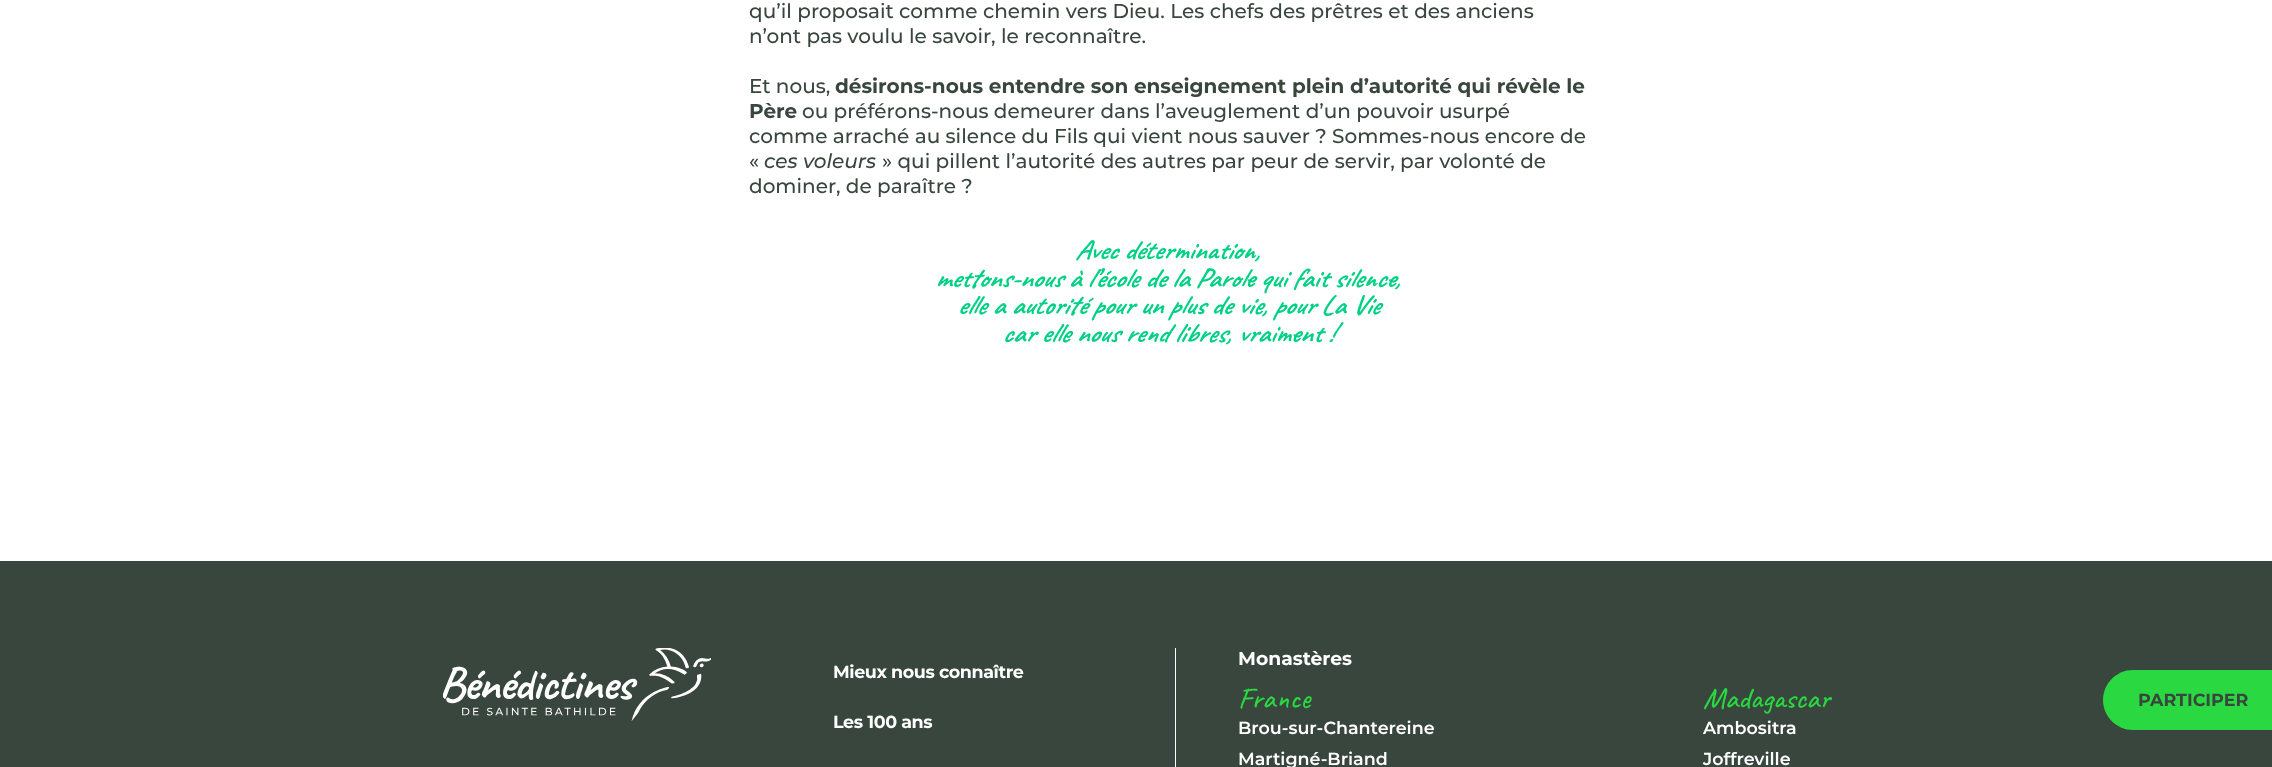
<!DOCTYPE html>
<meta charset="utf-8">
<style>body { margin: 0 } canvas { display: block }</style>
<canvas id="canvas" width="2272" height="767"></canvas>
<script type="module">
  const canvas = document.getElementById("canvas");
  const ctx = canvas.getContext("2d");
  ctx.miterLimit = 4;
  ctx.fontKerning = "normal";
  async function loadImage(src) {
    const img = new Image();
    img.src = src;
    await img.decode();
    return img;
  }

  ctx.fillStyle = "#ffffff";
  ctx.fillRect(0, 0, 2272, 767);
  ctx.font = "500 20px Montserrat";
  ctx.fillStyle = "#38463e";
  ctx.fillText("qu’il proposait comme chemin vers Dieu. Les chefs des prêtres et des anciens", 749, 18);
  ctx.fillText("n’ont pas voulu le savoir, le reconnaître.", 749, 43);
  ctx.fillText("Et nous,", 749, 93);
  ctx.font = "bold 20px Montserrat";
  ctx.fillText("désirons-nous entendre son enseignement plein d’autorité qui révèle le", 835, 93);
  ctx.fillText("Père", 749, 118);
  ctx.font = "500 20px Montserrat";
  ctx.fillText("ou préférons-nous demeurer dans l’aveuglement d’un pouvoir usurpé", 802, 118);
  ctx.fillText("comme arraché au silence du Fils qui vient nous sauver ? Sommes-nous encore de", 749, 143);
  ctx.fillText("«", 749, 168);
  ctx.font = "italic 500 20px Montserrat";
  ctx.fillText("ces voleurs", 764, 168);
  ctx.font = "500 20px Montserrat";
  ctx.fillText("» qui pillent l’autorité des autres par peur de servir, par volonté de", 882, 168);
  ctx.fillText("dominer, de paraître ?", 749, 193);
  ctx.font = "italic bold 27.5px Caveat";
  ctx.fillStyle = "#00d084";
  ctx.fillText("Avec détermination,", 1075, 259);
  ctx.fillText("mettons-nous à l’école de la Parole qui fait silence,", 935, 287);
  ctx.fillText("elle a autorité pour un plus de vie, pour La Vie", 957, 314);
  ctx.fillText("car elle nous rend libres, vraiment !", 1002, 342);
  ctx.fillStyle = "#38463e";
  ctx.fillRect(0, 561, 2272, 206);
  ctx.drawImage(await loadImage("img1.png"), 443, 648, 268, 73);
  ctx.letterSpacing = "-0.4px";
  ctx.font = "bold 17.5px Montserrat";
  ctx.fillStyle = "#ffffff";
  ctx.fillText("Mieux nous connaître", 833, 678);
  ctx.fillText("Les 100 ans", 833, 728);
  ctx.fillRect(1175, 648, 1, 119);
  ctx.letterSpacing = "0px";
  ctx.font = "bold 18.75px Montserrat";
  ctx.fillText("Monastères", 1238, 665);
  ctx.font = "500 30px Caveat";
  ctx.fillStyle = "#2ad841";
  ctx.fillText("France", 1238, 708);
  ctx.font = "600 17.5px Montserrat";
  ctx.fillStyle = "#ffffff";
  ctx.fillText("Brou-sur-Chantereine", 1238, 734);
  ctx.fillText("Martigné-Briand", 1238, 765);
  ctx.font = "500 30px Caveat";
  ctx.fillStyle = "#2ad841";
  ctx.fillText("Madagascar", 1703, 708);
  ctx.font = "600 17.5px Montserrat";
  ctx.fillStyle = "#ffffff";
  ctx.fillText("Ambositra", 1703, 734);
  ctx.fillText("Joffreville", 1703, 765);
  ctx.fillStyle = "#2ad841";
  ctx.beginPath();
  ctx.moveTo(2133, 670);
  ctx.lineTo(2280, 670);
  ctx.lineTo(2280, 730);
  ctx.lineTo(2133, 730);
  ctx.bezierCurveTo(2116.5, 730, 2103, 716.5, 2103, 700);
  ctx.bezierCurveTo(2103, 683.5, 2116.5, 670, 2133, 670);
  ctx.closePath();
  ctx.fill();
  ctx.font = "bold 17.5px Montserrat";
  ctx.fillStyle = "#38463e";
  ctx.fillText("PARTICIPER", 2138, 706);
</script>
